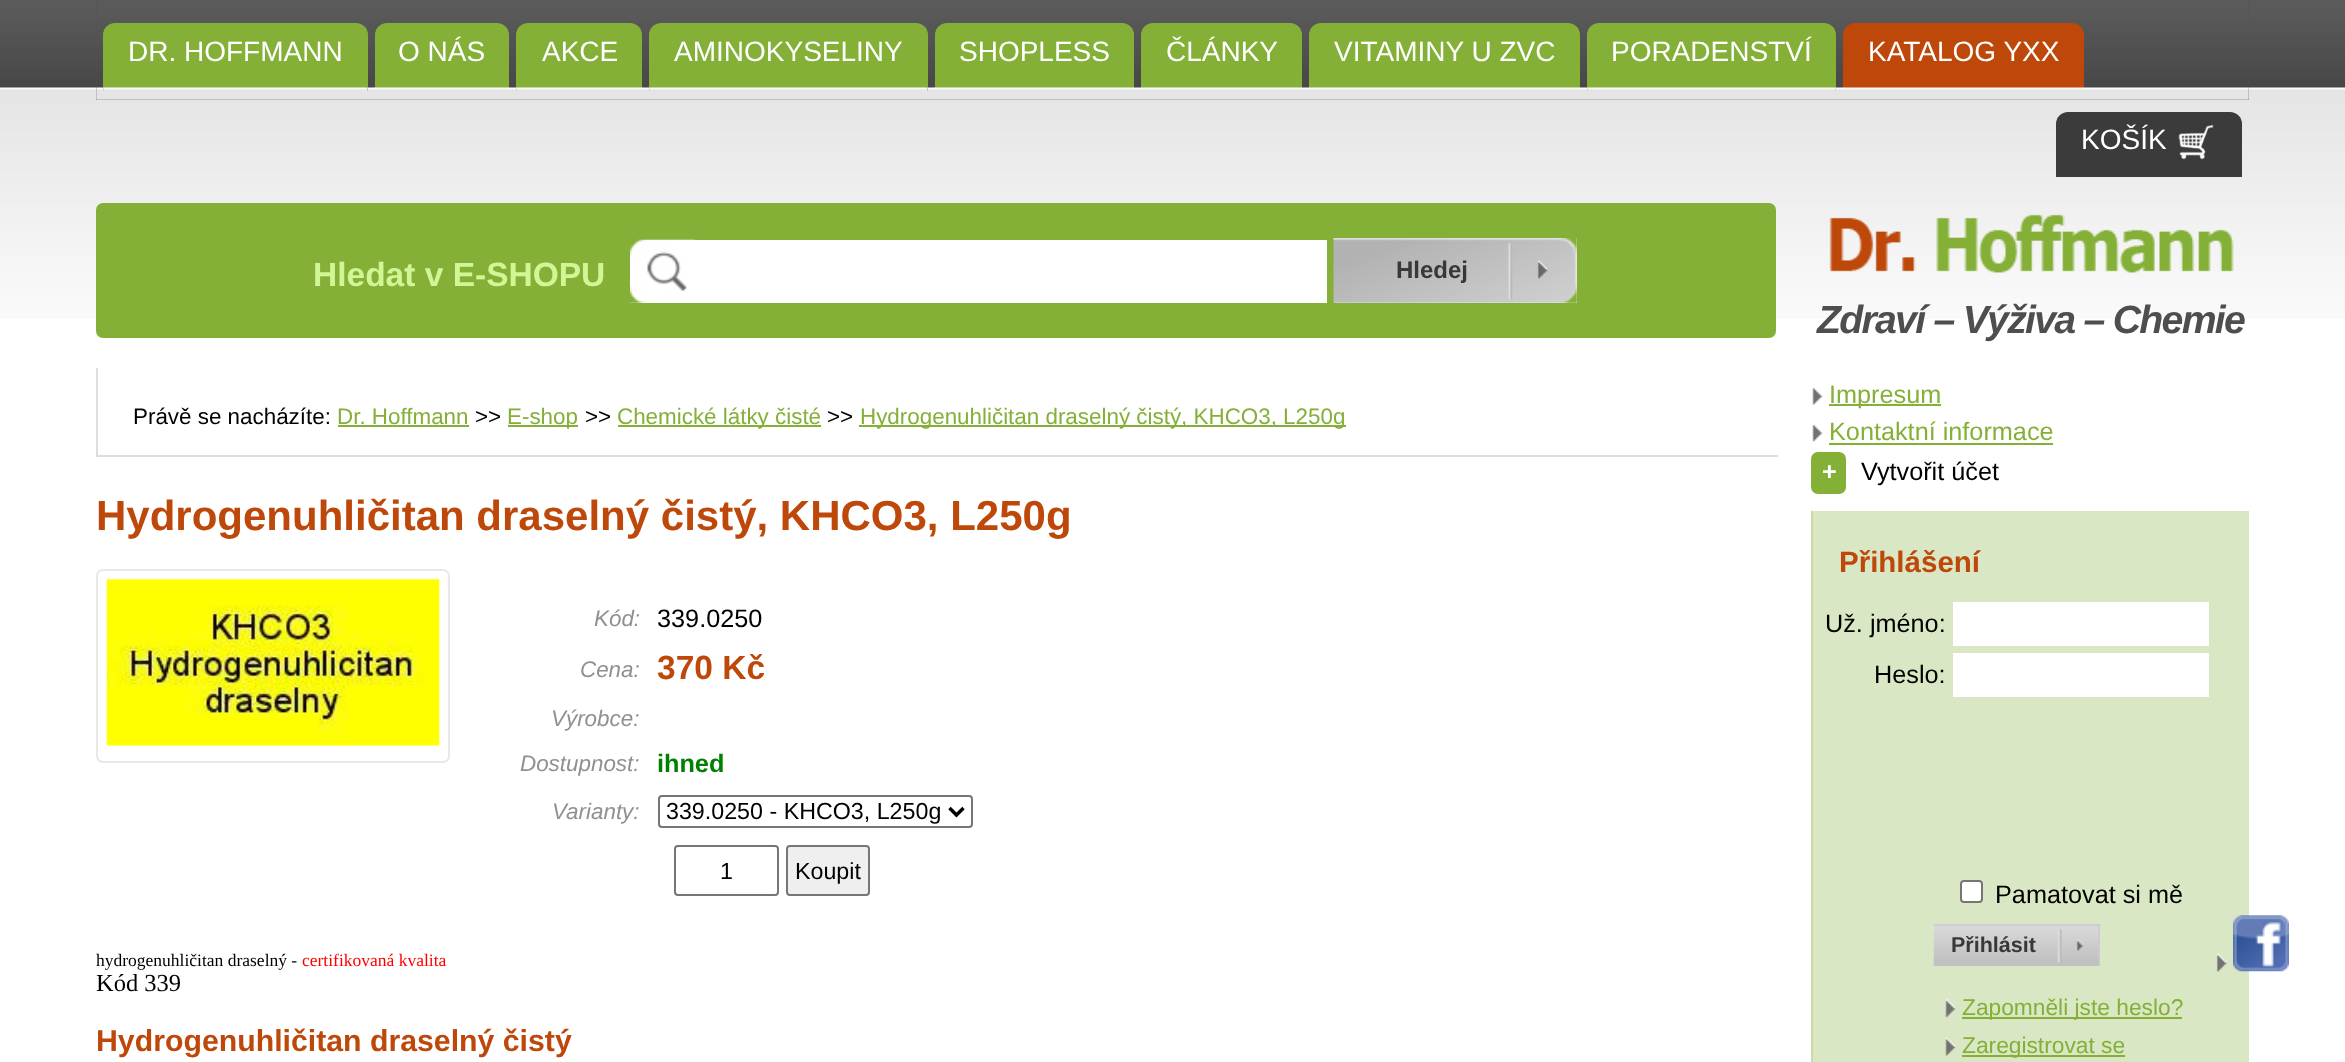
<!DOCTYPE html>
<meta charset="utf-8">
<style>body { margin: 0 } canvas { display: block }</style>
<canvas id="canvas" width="2345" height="1062"></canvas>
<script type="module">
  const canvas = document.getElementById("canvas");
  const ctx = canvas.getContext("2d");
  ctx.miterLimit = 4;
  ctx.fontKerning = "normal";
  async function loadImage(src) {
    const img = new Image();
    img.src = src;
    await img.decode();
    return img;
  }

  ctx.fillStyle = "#ffffff";
  ctx.fillRect(0, 0, 2345, 1062);
  ctx.drawImage(await loadImage("img1.png"), 0, 0, 2345, 319);
  ctx.fillStyle = "#535353";
  ctx.fillRect(96, 0, 2153, 100);
  ctx.drawImage(await loadImage("img2.png"), 96, 0, 2153, 100);
  ctx.fillStyle = "#84b038";
  ctx.beginPath();
  ctx.roundRect(103, 23, 265, 68, [12, 12, 0, 0]);
  ctx.fill();
  ctx.drawImage(await loadImage("img3.png"), 103, 87, 265, 4);
  ctx.font = "28px Liberation Sans";
  ctx.fillStyle = "#ffffff";
  ctx.fillText("DR. HOFFMANN", 128, 61);
  ctx.fillStyle = "#84b038";
  ctx.beginPath();
  ctx.roundRect(375, 23, 134, 68, [12, 12, 0, 0]);
  ctx.fill();
  ctx.drawImage(await loadImage("img4.png"), 374, 87, 136, 4);
  ctx.fillStyle = "#ffffff";
  ctx.fillText("O NÁS", 398, 61);
  ctx.fillStyle = "#84b038";
  ctx.beginPath();
  ctx.roundRect(516, 23, 126, 68, [12, 12, 0, 0]);
  ctx.fill();
  ctx.drawImage(await loadImage("img5.png"), 516, 87, 127, 4);
  ctx.fillStyle = "#ffffff";
  ctx.fillText("AKCE", 542, 61);
  ctx.fillStyle = "#84b038";
  ctx.beginPath();
  ctx.roundRect(649, 23, 279, 68, [12, 12, 0, 0]);
  ctx.fill();
  ctx.drawImage(await loadImage("img6.png"), 649, 87, 279, 4);
  ctx.fillStyle = "#ffffff";
  ctx.fillText("AMINOKYSELINY", 674, 61);
  ctx.fillStyle = "#84b038";
  ctx.beginPath();
  ctx.roundRect(935, 23, 199, 68, [12, 12, 0, 0]);
  ctx.fill();
  ctx.drawImage(await loadImage("img7.png"), 934, 87, 200, 4);
  ctx.fillStyle = "#ffffff";
  ctx.fillText("SHOPLESS", 959, 61);
  ctx.fillStyle = "#84b038";
  ctx.beginPath();
  ctx.roundRect(1141, 23, 161, 68, [12, 12, 0, 0]);
  ctx.fill();
  ctx.drawImage(await loadImage("img8.png"), 1141, 87, 161, 4);
  ctx.fillStyle = "#ffffff";
  ctx.fillText("ČLÁNKY", 1166, 61);
  ctx.fillStyle = "#84b038";
  ctx.beginPath();
  ctx.roundRect(1309, 23, 271, 68, [12, 12, 0, 0]);
  ctx.fill();
  ctx.drawImage(await loadImage("img9.png"), 1309, 87, 272, 4);
  ctx.fillStyle = "#ffffff";
  ctx.fillText("VITAMINY U ZVC", 1334, 61);
  ctx.fillStyle = "#84b038";
  ctx.beginPath();
  ctx.roundRect(1587, 23, 249, 68, [12, 12, 0, 0]);
  ctx.fill();
  ctx.drawImage(await loadImage("img10.png"), 1587, 87, 249, 4);
  ctx.fillStyle = "#ffffff";
  ctx.fillText("PORADENSTVÍ", 1611, 61);
  ctx.fillStyle = "#bd4809";
  ctx.beginPath();
  ctx.roundRect(1843, 23, 241, 68, [12, 12, 0, 0]);
  ctx.fill();
  ctx.drawImage(await loadImage("img11.png"), 1842, 87, 243, 4);
  ctx.fillStyle = "#ffffff";
  ctx.fillText("KATALOG YXX", 1868, 61);
  ctx.fillStyle = "#3b3b3b";
  ctx.beginPath();
  ctx.roundRect(2056, 112, 186, 65, [12, 12, 0, 0]);
  ctx.fill();
  ctx.fillStyle = "#ffffff";
  ctx.fillText("KOŠÍK", 2081, 149);
  ctx.drawImage(await loadImage("img12.png"), 2178, 124, 36, 36);
  ctx.fillStyle = "#84b038";
  ctx.beginPath();
  ctx.roundRect(96, 203, 1680, 135, 7);
  ctx.fill();
  ctx.font = "bold 33.5px Liberation Sans";
  ctx.fillStyle = "#d2f596";
  ctx.fillText("Hledat v E-SHOPU", 313, 286);
  ctx.fillStyle = "#ffffff";
  ctx.fillRect(630, 240, 697, 63);
  ctx.drawImage(await loadImage("img13.png"), 630, 239, 65, 64);
  ctx.fillRect(1334, 238, 243, 65);
  ctx.drawImage(await loadImage("img14.png"), 1333, 238, 244, 65);
  ctx.font = "bold 24px Liberation Sans";
  ctx.fillStyle = "#383838";
  ctx.fillText("Hledej", 1396, 278);
  ctx.drawImage(await loadImage("img15.png"), 1829, 214, 405, 59);
  ctx.letterSpacing = "-1.75px";
  ctx.font = "italic bold 39.25px Liberation Sans";
  ctx.fillStyle = "#4e4e4e";
  ctx.fillText("Zdraví – Výživa – Chemie", 1817, 333);
  ctx.fillStyle = "#dddddd";
  ctx.fillRect(96, 455, 1682, 2);
  ctx.fillRect(96, 368, 2, 89);
  ctx.letterSpacing = "0px";
  ctx.font = "22.4px Liberation Sans";
  ctx.fillStyle = "#000000";
  ctx.fillText("Právě se nacházíte:", 133, 424);
  ctx.fillStyle = "#84b038";
  ctx.fillText("Dr. Hoffmann", 337, 424);
  ctx.fillRect(338, 425, 131, 2);
  ctx.fillStyle = "#000000";
  ctx.fillText(">>", 475, 424);
  ctx.fillStyle = "#84b038";
  ctx.fillRect(508, 425, 70, 2);
  ctx.fillText("E-shop", 507, 424);
  ctx.fillStyle = "#000000";
  ctx.fillText(">>", 585, 424);
  ctx.fillStyle = "#84b038";
  ctx.fillRect(618, 425, 203, 2);
  ctx.fillText("Chemické látky čisté", 617, 424);
  ctx.fillStyle = "#000000";
  ctx.fillText(">>", 827, 424);
  ctx.fillStyle = "#84b038";
  ctx.fillRect(859, 425, 487, 2);
  ctx.fillText("Hydrogenuhličitan draselný čistý, KHCO3, L250g", 860, 424);
  ctx.font = "bold 42px Liberation Sans";
  ctx.fillStyle = "#bd4809";
  ctx.fillText("Hydrogenuhličitan draselný čistý, KHCO3, L250g", 96, 530);
  ctx.beginPath();
  ctx.roundRect(97, 570, 352, 192, 6);
  ctx.strokeStyle = "#e9e8e8";
  ctx.lineWidth = 2;
  ctx.stroke();
  ctx.drawImage(await loadImage("img16.png"), 106, 579, 334, 167);
  ctx.font = "italic 22.4px Liberation Sans";
  ctx.fillStyle = "#909090";
  ctx.fillText("Kód:", 594, 626);
  ctx.font = "25.25px Liberation Sans";
  ctx.fillStyle = "#000000";
  ctx.fillText("339.0250", 657, 627);
  ctx.font = "italic 22.4px Liberation Sans";
  ctx.fillStyle = "#909090";
  ctx.fillText("Cena:", 580, 677);
  ctx.font = "bold 33.5px Liberation Sans";
  ctx.fillStyle = "#bd4809";
  ctx.fillText("370 Kč", 657, 679);
  ctx.font = "italic 22.4px Liberation Sans";
  ctx.fillStyle = "#909090";
  ctx.fillText("Výrobce:", 551, 726);
  ctx.fillText("Dostupnost:", 520, 771);
  ctx.font = "bold 25.25px Liberation Sans";
  ctx.fillStyle = "#008000";
  ctx.fillText("ihned", 657, 772);
  ctx.font = "italic 22.4px Liberation Sans";
  ctx.fillStyle = "#909090";
  ctx.fillText("Varianty:", 552, 819);
  ctx.beginPath();
  ctx.roundRect(659, 796, 313, 31, 3);
  ctx.strokeStyle = "#767676";
  ctx.stroke();
  ctx.beginPath();
  ctx.moveTo(949.5, 808);
  ctx.lineTo(956.5, 815);
  ctx.lineTo(963.5, 808);
  ctx.strokeStyle = "#000000";
  ctx.lineWidth = 3.5;
  ctx.stroke();
  ctx.font = "23.25px Liberation Sans";
  ctx.fillStyle = "#000000";
  ctx.fillText("339.0250 - KHCO3, L250g", 666, 819);
  ctx.beginPath();
  ctx.roundRect(675, 846, 103, 49, 3);
  ctx.strokeStyle = "#767676";
  ctx.lineWidth = 2;
  ctx.stroke();
  ctx.fillText("1", 720, 879);
  ctx.fillStyle = "#efefef";
  ctx.beginPath();
  ctx.roundRect(787, 846, 82, 49, 3);
  ctx.fill();
  ctx.stroke();
  ctx.fillStyle = "#000000";
  ctx.fillText("Koupit", 795, 879);
  ctx.font = "17.5px Liberation Serif";
  ctx.fillText("hydrogenuhličitan draselný -", 96, 966);
  ctx.fillStyle = "#ff0000";
  ctx.fillText("certifikovaná kvalita", 302, 966);
  ctx.font = "24.5px Liberation Serif";
  ctx.fillStyle = "#000000";
  ctx.fillText("Kód 339", 96, 991);
  ctx.font = "bold 30.25px Liberation Sans";
  ctx.fillStyle = "#bd4809";
  ctx.fillText("Hydrogenuhličitan draselný čistý", 96, 1051);
  ctx.drawImage(await loadImage("img17.png"), 1812, 388, 11, 17);
  ctx.fillStyle = "#84b038";
  ctx.fillRect(1829, 404, 112, 2);
  ctx.font = "25.25px Liberation Sans";
  ctx.fillText("Impresum", 1829, 403);
  ctx.drawImage(await loadImage("img18.png"), 1812, 424, 11, 18);
  ctx.fillText("Kontaktní informace", 1829, 440);
  ctx.fillRect(1829, 443, 224, 2);
  ctx.beginPath();
  ctx.roundRect(1811, 452, 35, 42, 7);
  ctx.fill();
  ctx.font = "bold 25.25px Liberation Sans";
  ctx.fillStyle = "#ffffff";
  ctx.fillText("+", 1822, 480);
  ctx.font = "25.25px Liberation Sans";
  ctx.fillStyle = "#000000";
  ctx.fillText("Vytvořit účet", 1861, 480);
  ctx.fillStyle = "#dae7c4";
  ctx.fillRect(1813, 511, 436, 551);
  ctx.fillStyle = "#c9dca8";
  ctx.fillRect(1811, 511, 2, 551);
  ctx.font = "bold 29.5px Liberation Sans";
  ctx.fillStyle = "#bd4809";
  ctx.fillText("Přihlášení", 1839, 572);
  ctx.font = "25.25px Liberation Sans";
  ctx.fillStyle = "#000000";
  ctx.fillText("Už. jméno:", 1825, 632);
  ctx.fillStyle = "#ffffff";
  ctx.fillRect(1953, 602, 256, 44);
  ctx.fillStyle = "#000000";
  ctx.fillText("Heslo:", 1874, 683);
  ctx.fillStyle = "#ffffff";
  ctx.fillRect(1953, 653, 256, 44);
  ctx.beginPath();
  ctx.roundRect(1961, 881, 21, 21, 3);
  ctx.fill();
  ctx.stroke();
  ctx.fillStyle = "#000000";
  ctx.fillText("Pamatovat si mě", 1995, 903);
  ctx.drawImage(await loadImage("img19.png"), 1933, 924, 167, 42);
  ctx.font = "bold 21.5px Liberation Sans";
  ctx.fillStyle = "#383838";
  ctx.fillText("Přihlásit", 1951, 952);
  ctx.drawImage(await loadImage("img20.png"), 2216, 953, 11, 19);
  ctx.drawImage(await loadImage("img21.png"), 2233, 915, 56, 57);
  ctx.drawImage(await loadImage("img22.png"), 1945, 999, 11, 19);
  ctx.fillStyle = "#84b038";
  ctx.fillRect(1962, 1017, 220, 2);
  ctx.font = "22.75px Liberation Sans";
  ctx.fillText("Zapomněli jste heslo?", 1962, 1015);
  ctx.drawImage(await loadImage("img23.png"), 1945, 1037, 11, 19);
  ctx.fillRect(1962, 1055, 163, 2);
  ctx.fillText("Zaregistrovat se", 1962, 1053);
</script>
